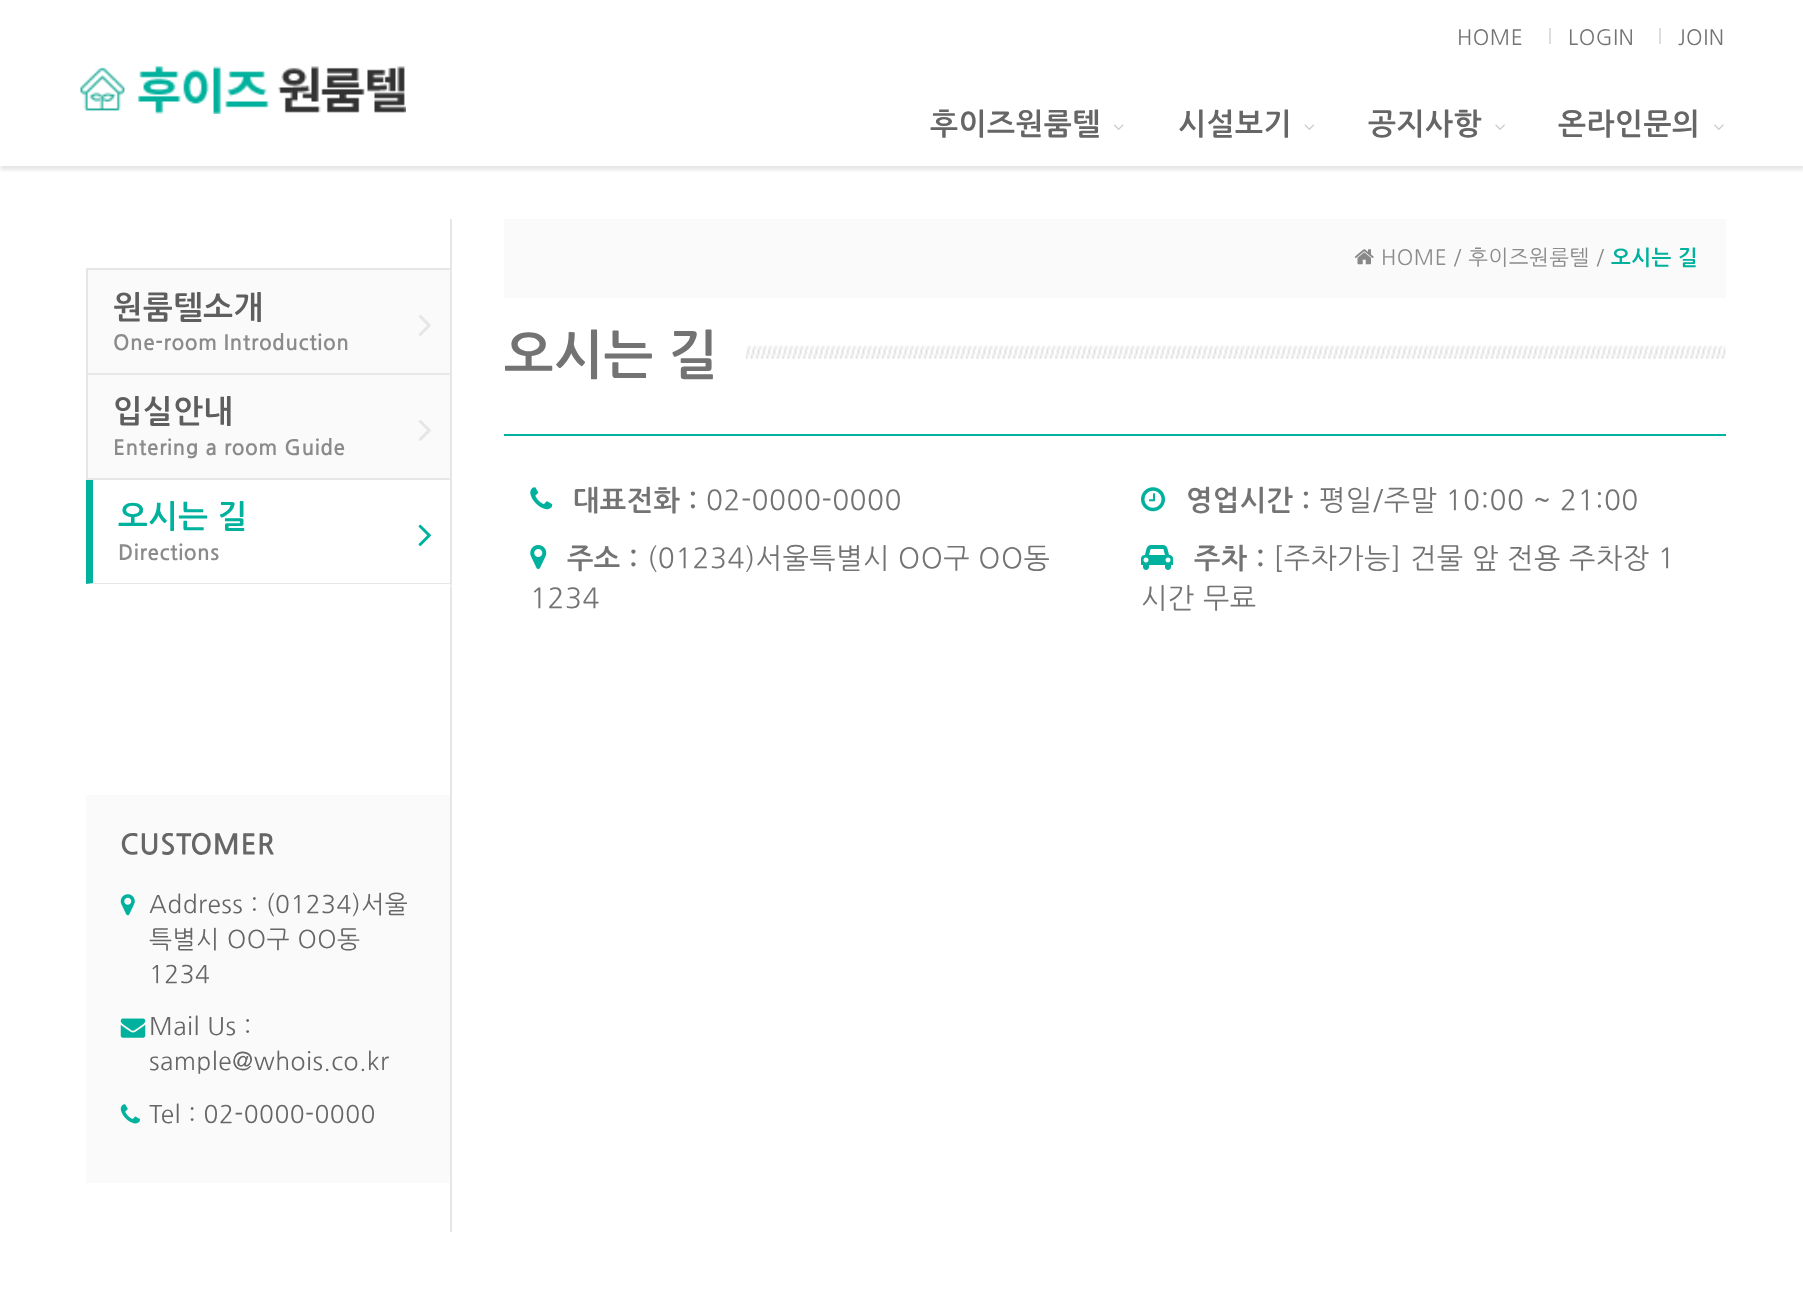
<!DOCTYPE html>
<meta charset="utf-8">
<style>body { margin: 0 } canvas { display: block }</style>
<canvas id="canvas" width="1803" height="1314"></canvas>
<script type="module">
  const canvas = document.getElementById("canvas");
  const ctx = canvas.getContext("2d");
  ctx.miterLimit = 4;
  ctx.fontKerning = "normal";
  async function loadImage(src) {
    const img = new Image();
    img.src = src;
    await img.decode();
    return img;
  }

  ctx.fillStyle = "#ffffff";
  ctx.fillRect(0, 0, 1803, 1314);
  ctx.save();
  ctx.beginPath();
  ctx.rect(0, 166, 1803, 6);
  ctx.clip();
  ctx.fillStyle = "rgba(0, 0, 0, 0.1)";
  ctx.filter = "blur(2px)";
  ctx.beginPath();
  ctx.rect(0, 4, 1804, 166);
  ctx.fill();
  ctx.filter = "none";
  ctx.restore();
  ctx.drawImage(await loadImage("img1.png"), 80, 66, 326, 48);
  ctx.letterSpacing = "0.5px";
  ctx.font = "21px NanumGothic";
  ctx.fillStyle = "#737373";
  ctx.fillText("HOME", 1457, 44);
  ctx.fillStyle = "#dddddd";
  ctx.fillRect(1549, 28, 2, 16);
  ctx.fillStyle = "#737373";
  ctx.fillText("LOGIN", 1568, 44);
  ctx.fillStyle = "#dddddd";
  ctx.fillRect(1659, 28, 2, 16);
  ctx.fillStyle = "#737373";
  ctx.fillText("JOIN", 1678, 44);
  ctx.font = "bold 29.75px NanumGothic";
  ctx.fillStyle = "#666666";
  ctx.fillText("후이즈원룸텔", 930, 133);
  ctx.drawImage(await loadImage("img2.png"), 1113, 124, 11, 6);
  ctx.fillText("시설보기", 1178, 133);
  ctx.drawImage(await loadImage("img3.png"), 1304, 124, 11, 6);
  ctx.fillText("공지사항", 1368, 133);
  ctx.drawImage(await loadImage("img4.png"), 1495, 124, 10, 6);
  ctx.fillText("온라인문의", 1558, 133);
  ctx.drawImage(await loadImage("img5.png"), 1714, 124, 10, 6);
  ctx.fillStyle = "#e6e6e6";
  ctx.fillRect(450, 219, 2, 1013);
  ctx.fillStyle = "#ffffff";
  ctx.filter = "blur(1px)";
  ctx.beginPath();
  ctx.rect(88, 270, 365, 106);
  ctx.fill();
  ctx.filter = "none";
  ctx.fillStyle = "#fafafa";
  ctx.beginPath();
  ctx.rect(87, 269, 364, 105);
  ctx.fill();
  ctx.strokeStyle = "#e6e6e6";
  ctx.lineWidth = 2;
  ctx.stroke();
  ctx.font = "bold 31.5px NanumGothic";
  ctx.fillStyle = "#5e5e5e";
  ctx.fillText("원룸텔소개", 113, 317);
  ctx.drawImage(await loadImage("img6.png"), 418, 314, 13, 22);
  ctx.font = "bold 21px NanumGothic";
  ctx.fillStyle = "#8b8b8b";
  ctx.fillText("One-room Introduction", 113, 349);
  ctx.fillStyle = "#ffffff";
  ctx.filter = "blur(1px)";
  ctx.beginPath();
  ctx.rect(88, 376, 365, 105);
  ctx.fill();
  ctx.filter = "none";
  ctx.fillStyle = "#fafafa";
  ctx.fillRect(88, 375, 362, 103);
  ctx.fillStyle = "#e6e6e6";
  ctx.fillRect(450, 375, 2, 105);
  ctx.fillRect(86, 478, 366, 2);
  ctx.fillRect(86, 375, 2, 105);
  ctx.font = "bold 31.5px NanumGothic";
  ctx.fillStyle = "#5e5e5e";
  ctx.fillText("입실안내", 113, 421);
  ctx.drawImage(await loadImage("img6.png"), 418, 419, 13, 22);
  ctx.font = "bold 21px NanumGothic";
  ctx.fillStyle = "#8b8b8b";
  ctx.fillText("Entering a room Guide", 113, 454);
  ctx.fillStyle = "#ffffff";
  ctx.filter = "blur(1px)";
  ctx.beginPath();
  ctx.rect(88, 481, 365, 105);
  ctx.fill();
  ctx.filter = "none";
  ctx.fillStyle = "#e6e6e6";
  ctx.fillRect(450, 480, 2, 105);
  ctx.beginPath();
  ctx.moveTo(452, 584);
  ctx.lineTo(86, 584);
  ctx.lineTo(93, 583);
  ctx.lineTo(450, 583);
  ctx.closePath();
  ctx.fill();
  ctx.fillStyle = "#00b19d";
  ctx.beginPath();
  ctx.moveTo(86, 584);
  ctx.lineTo(86, 480);
  ctx.lineTo(93, 480);
  ctx.lineTo(93, 583);
  ctx.closePath();
  ctx.fill();
  ctx.font = "bold 31.5px NanumGothic";
  ctx.fillText("오시는 길", 118, 526);
  ctx.drawImage(await loadImage("img7.png"), 418, 524, 13, 22);
  ctx.font = "bold 21px NanumGothic";
  ctx.fillStyle = "#8b8b8b";
  ctx.fillText("Directions", 118, 559);
  ctx.fillStyle = "#fafafa";
  ctx.fillRect(86, 795, 364, 388);
  ctx.font = "bold 28px NanumGothic";
  ctx.fillStyle = "#666666";
  ctx.fillText("CUSTOMER", 120, 853);
  ctx.drawImage(await loadImage("img8.png"), 120, 894, 15, 22);
  ctx.font = "24.5px NanumGothic";
  ctx.fillText("Address : (01234)서울", 149, 912);
  ctx.fillText("특별시 OO구 OO동", 149, 947);
  ctx.fillText("1234", 149, 982);
  ctx.drawImage(await loadImage("img9.png"), 120, 1018, 26, 20);
  ctx.fillText("Mail Us :", 149, 1034);
  ctx.fillText("sample@whois.co.kr", 149, 1069);
  ctx.drawImage(await loadImage("img10.png"), 120, 1104, 20, 20);
  ctx.fillText("Tel : 02-0000-0000", 149, 1122);
  ctx.fillStyle = "#fafafa";
  ctx.fillRect(504, 219, 1222, 79);
  ctx.drawImage(await loadImage("img11.png"), 1354, 249, 20, 16);
  ctx.font = "21px NanumGothic";
  ctx.fillStyle = "#8b8b8b";
  ctx.fillText("HOME / 후이즈원룸텔 /", 1381, 264);
  ctx.font = "bold 21px NanumGothic";
  ctx.fillStyle = "#00b19d";
  ctx.fillText("오시는 길", 1611, 264);
  ctx.drawImage(await loadImage("img12.png"), 746, 345, 980, 14);
  ctx.font = "bold 52.5px NanumGothic";
  ctx.fillStyle = "#737373";
  ctx.fillText("오시는 길", 504, 371);
  ctx.fillStyle = "#00b19d";
  ctx.fillRect(504, 434, 1222, 2);
  ctx.drawImage(await loadImage("img13.png"), 530, 487, 23, 23);
  ctx.font = "bold 28px NanumGothic";
  ctx.fillStyle = "#737373";
  ctx.fillText("대표전화 :", 573, 509);
  ctx.font = "28px NanumGothic";
  ctx.fillText("02-0000-0000", 706, 509);
  ctx.drawImage(await loadImage("img14.png"), 1141, 487, 24, 25);
  ctx.font = "bold 28px NanumGothic";
  ctx.fillText("영업시간 :", 1186, 509);
  ctx.font = "28px NanumGothic";
  ctx.fillText("평일/주말 10:00 ~ 21:00", 1319, 509);
  ctx.drawImage(await loadImage("img15.png"), 530, 545, 17, 24);
  ctx.font = "bold 28px NanumGothic";
  ctx.fillText("주소 :", 567, 567);
  ctx.font = "28px NanumGothic";
  ctx.fillText("(01234)서울특별시 OO구 OO동", 647, 567);
  ctx.fillText("1234", 530, 607);
  ctx.drawImage(await loadImage("img16.png"), 1141, 545, 32, 25);
  ctx.font = "bold 28px NanumGothic";
  ctx.fillText("주차 :", 1194, 567);
  ctx.font = "28px NanumGothic";
  ctx.fillText("[주차가능] 건물 앞 전용 주차장 1", 1273, 567);
  ctx.fillText("시간 무료", 1141, 607);
</script>
